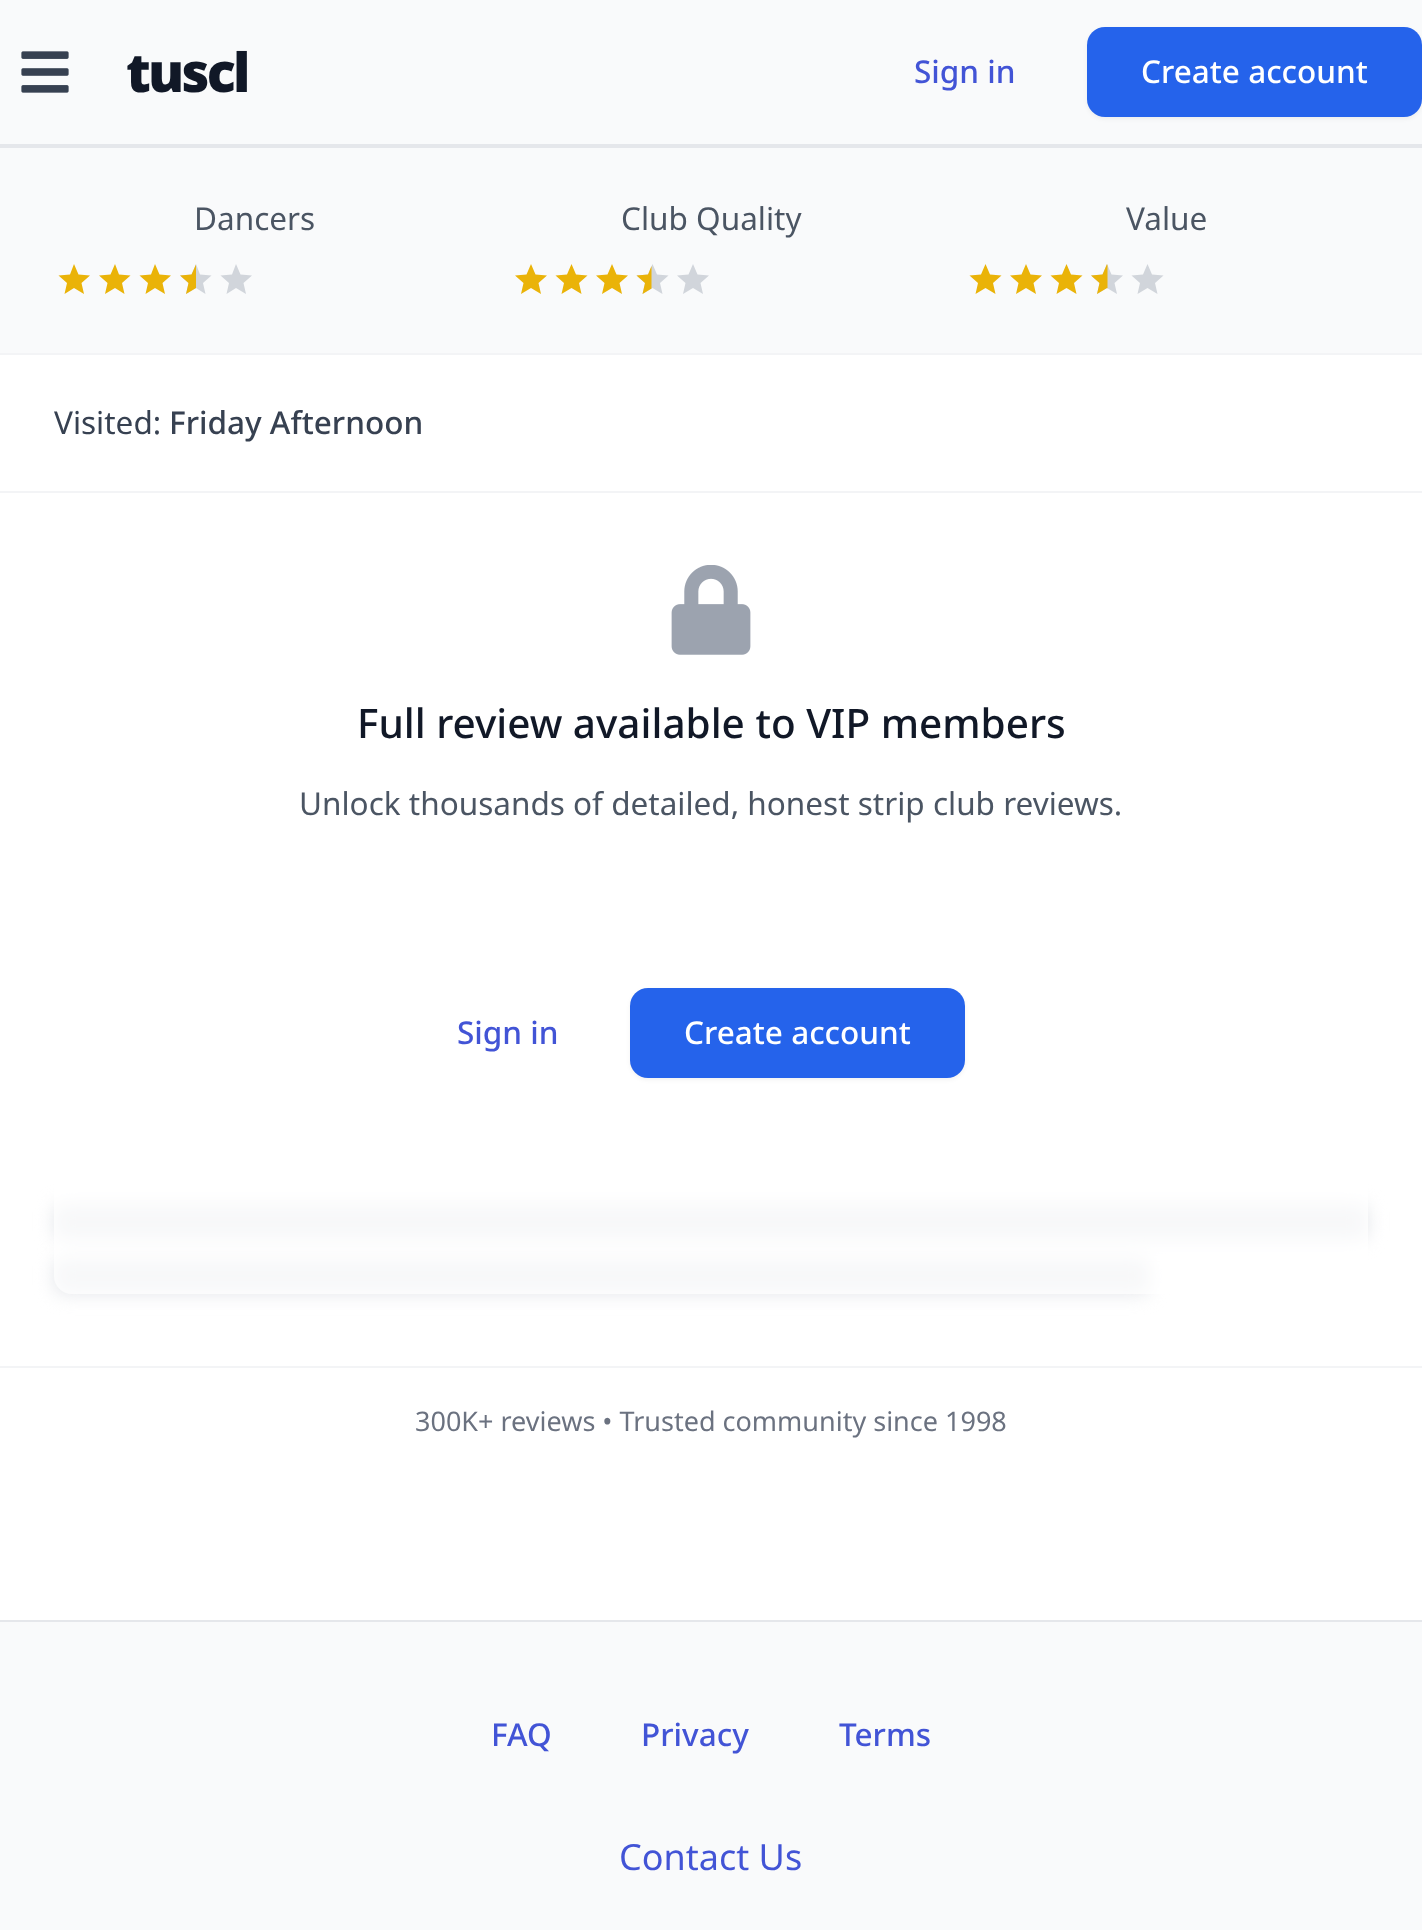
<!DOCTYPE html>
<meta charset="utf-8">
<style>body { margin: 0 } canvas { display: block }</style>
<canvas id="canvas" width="1422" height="1930"></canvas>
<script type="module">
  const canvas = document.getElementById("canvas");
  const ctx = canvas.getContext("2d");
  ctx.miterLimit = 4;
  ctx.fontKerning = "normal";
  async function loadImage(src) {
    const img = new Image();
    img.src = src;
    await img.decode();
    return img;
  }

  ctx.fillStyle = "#ffffff";
  ctx.fillRect(0, 0, 1422, 1930);
  ctx.fillStyle = "#f9fafb";
  ctx.fillRect(0, 0, 1422, 144);
  ctx.fillStyle = "#e5e7eb";
  ctx.fillRect(0, 144, 1422, 4);
  ctx.drawImage(await loadImage("img1.png"), 21, 51, 48, 42);
  ctx.letterSpacing = "-2.75px";
  ctx.font = "900 54px Noto Sans";
  ctx.fillStyle = "#111827";
  ctx.fillText("tuscl", 126, 92);
  ctx.letterSpacing = "0px";
  ctx.font = "500 31.5px Noto Sans";
  ctx.fillStyle = "#4254d6";
  ctx.fillText("Sign in", 914, 83);
  ctx.fillStyle = "rgba(0, 0, 0, 0.05)";
  ctx.filter = "blur(2px)";
  ctx.beginPath();
  ctx.roundRect(1087, 29, 335, 90, 18);
  ctx.fill();
  ctx.filter = "none";
  ctx.fillStyle = "#2563eb";
  ctx.beginPath();
  ctx.roundRect(1087, 27, 335, 90, 18);
  ctx.fill();
  ctx.fillStyle = "#ffffff";
  ctx.fillText("Create account", 1141, 83);
  ctx.fillStyle = "#f9fafb";
  ctx.fillRect(0, 148, 1422, 205);
  ctx.fillStyle = "#f3f4f6";
  ctx.fillRect(0, 353, 1422, 2);
  ctx.font = "31.5px Noto Sans";
  ctx.fillStyle = "#4b5563";
  ctx.fillText("Dancers", 194, 230);
  ctx.fillStyle = "#eab308";
  ctx.beginPath();
  ctx.moveTo(74, 288);
  ctx.lineTo(84, 294);
  ctx.lineTo(81.5, 283);
  ctx.lineTo(90, 275.5);
  ctx.lineTo(78.5, 274.5);
  ctx.lineTo(74, 264);
  ctx.lineTo(70, 274.5);
  ctx.lineTo(58.5, 275.5);
  ctx.lineTo(67, 283);
  ctx.lineTo(64.5, 294);
  ctx.closePath();
  ctx.fill();
  ctx.beginPath();
  ctx.moveTo(115, 288);
  ctx.lineTo(124.5, 294);
  ctx.lineTo(122, 283);
  ctx.lineTo(130.5, 275.5);
  ctx.lineTo(119, 274.5);
  ctx.lineTo(115, 264);
  ctx.lineTo(110.5, 274.5);
  ctx.lineTo(99, 275.5);
  ctx.lineTo(107.5, 283);
  ctx.lineTo(105, 294);
  ctx.closePath();
  ctx.fill();
  ctx.fillStyle = "#d1d5db";
  ctx.beginPath();
  ctx.moveTo(196, 288);
  ctx.lineTo(205.5, 294);
  ctx.lineTo(203, 283);
  ctx.lineTo(211.5, 275.5);
  ctx.lineTo(200, 274.5);
  ctx.lineTo(196, 264);
  ctx.lineTo(191.5, 274.5);
  ctx.lineTo(180, 275.5);
  ctx.lineTo(188.5, 283);
  ctx.lineTo(186, 294);
  ctx.closePath();
  ctx.fill();
  ctx.fillStyle = "#eab308";
  ctx.beginPath();
  ctx.moveTo(155, 288);
  ctx.lineTo(165, 294);
  ctx.lineTo(162.5, 283);
  ctx.lineTo(171, 275.5);
  ctx.lineTo(159.5, 274.5);
  ctx.lineTo(155, 264);
  ctx.lineTo(151, 274.5);
  ctx.lineTo(139.5, 275.5);
  ctx.lineTo(148, 283);
  ctx.lineTo(145.5, 294);
  ctx.closePath();
  ctx.moveTo(196, 264.5);
  ctx.lineTo(196, 288);
  ctx.lineTo(186, 294);
  ctx.lineTo(188.5, 283);
  ctx.lineTo(180, 275.5);
  ctx.lineTo(191.5, 274.5);
  ctx.closePath();
  ctx.fill();
  ctx.fillStyle = "#d1d5db";
  ctx.beginPath();
  ctx.moveTo(236, 288);
  ctx.lineTo(246, 294);
  ctx.lineTo(243.5, 283);
  ctx.lineTo(252, 275.5);
  ctx.lineTo(240.5, 274.5);
  ctx.lineTo(236, 264);
  ctx.lineTo(232, 274.5);
  ctx.lineTo(220.5, 275.5);
  ctx.lineTo(229, 283);
  ctx.lineTo(226.5, 294);
  ctx.closePath();
  ctx.fill();
  ctx.fillStyle = "#4b5563";
  ctx.fillText("Club Quality", 621, 230);
  ctx.fillStyle = "#eab308";
  ctx.beginPath();
  ctx.moveTo(531, 288);
  ctx.lineTo(541, 294);
  ctx.lineTo(538.5, 283);
  ctx.lineTo(547, 275.5);
  ctx.lineTo(535.5, 274.5);
  ctx.lineTo(531, 264);
  ctx.lineTo(526.5, 274.5);
  ctx.lineTo(515, 275.5);
  ctx.lineTo(523.5, 283);
  ctx.lineTo(521, 294);
  ctx.closePath();
  ctx.fill();
  ctx.beginPath();
  ctx.moveTo(571.5, 288);
  ctx.lineTo(581.5, 294);
  ctx.lineTo(579, 283);
  ctx.lineTo(587.5, 275.5);
  ctx.lineTo(576, 274.5);
  ctx.lineTo(571.5, 264);
  ctx.lineTo(567, 274.5);
  ctx.lineTo(555.5, 275.5);
  ctx.lineTo(564, 283);
  ctx.lineTo(561.5, 294);
  ctx.closePath();
  ctx.fill();
  ctx.fillStyle = "#d1d5db";
  ctx.beginPath();
  ctx.moveTo(652.5, 288);
  ctx.lineTo(662.5, 294);
  ctx.lineTo(660, 283);
  ctx.lineTo(668.5, 275.5);
  ctx.lineTo(657, 274.5);
  ctx.lineTo(652.5, 264);
  ctx.lineTo(648, 274.5);
  ctx.lineTo(636.5, 275.5);
  ctx.lineTo(645, 283);
  ctx.lineTo(642.5, 294);
  ctx.closePath();
  ctx.fill();
  ctx.fillStyle = "#eab308";
  ctx.beginPath();
  ctx.moveTo(612, 288);
  ctx.lineTo(622, 294);
  ctx.lineTo(619.5, 283);
  ctx.lineTo(628, 275.5);
  ctx.lineTo(616.5, 274.5);
  ctx.lineTo(612, 264);
  ctx.lineTo(607.5, 274.5);
  ctx.lineTo(596, 275.5);
  ctx.lineTo(604.5, 283);
  ctx.lineTo(602, 294);
  ctx.closePath();
  ctx.moveTo(651.5, 266);
  ctx.lineTo(651.5, 288.5);
  ctx.lineTo(642.5, 294);
  ctx.lineTo(645, 283);
  ctx.lineTo(636.5, 275.5);
  ctx.lineTo(648, 274.5);
  ctx.closePath();
  ctx.fill();
  ctx.fillStyle = "#d1d5db";
  ctx.beginPath();
  ctx.moveTo(693, 288);
  ctx.lineTo(703, 294);
  ctx.lineTo(700.5, 283);
  ctx.lineTo(709, 275.5);
  ctx.lineTo(697.5, 274.5);
  ctx.lineTo(693, 264);
  ctx.lineTo(688.5, 274.5);
  ctx.lineTo(677, 275.5);
  ctx.lineTo(685.5, 283);
  ctx.lineTo(683, 294);
  ctx.closePath();
  ctx.fill();
  ctx.fillStyle = "#4b5563";
  ctx.fillText("Value", 1126, 230);
  ctx.fillStyle = "#eab308";
  ctx.beginPath();
  ctx.moveTo(985.5, 288);
  ctx.lineTo(995.5, 294);
  ctx.lineTo(993, 283);
  ctx.lineTo(1001.5, 275.5);
  ctx.lineTo(990, 274.5);
  ctx.lineTo(985.5, 264);
  ctx.lineTo(981, 274.5);
  ctx.lineTo(969.5, 275.5);
  ctx.lineTo(978, 283);
  ctx.lineTo(975.5, 294);
  ctx.closePath();
  ctx.fill();
  ctx.beginPath();
  ctx.moveTo(1026, 288);
  ctx.lineTo(1036, 294);
  ctx.lineTo(1033.5, 283);
  ctx.lineTo(1042, 275.5);
  ctx.lineTo(1030.5, 274.5);
  ctx.lineTo(1026, 264);
  ctx.lineTo(1021.5, 274.5);
  ctx.lineTo(1010, 275.5);
  ctx.lineTo(1018.5, 283);
  ctx.lineTo(1016, 294);
  ctx.closePath();
  ctx.fill();
  ctx.fillStyle = "#d1d5db";
  ctx.beginPath();
  ctx.moveTo(1107, 288);
  ctx.lineTo(1117, 294);
  ctx.lineTo(1114.5, 283);
  ctx.lineTo(1123, 275.5);
  ctx.lineTo(1111.5, 274.5);
  ctx.lineTo(1107, 264);
  ctx.lineTo(1102.5, 274.5);
  ctx.lineTo(1091, 275.5);
  ctx.lineTo(1099.5, 283);
  ctx.lineTo(1097, 294);
  ctx.closePath();
  ctx.fill();
  ctx.fillStyle = "#eab308";
  ctx.beginPath();
  ctx.moveTo(1066.5, 288);
  ctx.lineTo(1076.5, 294);
  ctx.lineTo(1074, 283);
  ctx.lineTo(1082.5, 275.5);
  ctx.lineTo(1071, 274.5);
  ctx.lineTo(1066.5, 264);
  ctx.lineTo(1062, 274.5);
  ctx.lineTo(1050.5, 275.5);
  ctx.lineTo(1059, 283);
  ctx.lineTo(1056.5, 294);
  ctx.closePath();
  ctx.moveTo(1107, 288);
  ctx.lineTo(1097, 294);
  ctx.lineTo(1099.5, 283);
  ctx.lineTo(1091, 275.5);
  ctx.lineTo(1102.5, 274.5);
  ctx.lineTo(1107, 264);
  ctx.lineTo(1107.5, 265.5);
  ctx.lineTo(1107.5, 288.5);
  ctx.closePath();
  ctx.fill();
  ctx.fillStyle = "#d1d5db";
  ctx.beginPath();
  ctx.moveTo(1147.5, 288);
  ctx.lineTo(1157.5, 294);
  ctx.lineTo(1155, 283);
  ctx.lineTo(1163.5, 275.5);
  ctx.lineTo(1152, 274.5);
  ctx.lineTo(1147.5, 264);
  ctx.lineTo(1143, 274.5);
  ctx.lineTo(1131.5, 275.5);
  ctx.lineTo(1140, 283);
  ctx.lineTo(1137.5, 294);
  ctx.closePath();
  ctx.fill();
  ctx.fillStyle = "#f3f4f6";
  ctx.fillRect(0, 491, 1422, 2);
  ctx.fillStyle = "#374151";
  ctx.fillText("Visited:", 54, 434);
  ctx.font = "500 31.5px Noto Sans";
  ctx.fillText("Friday Afternoon", 169, 434);
  ctx.fillStyle = "#e5e7eb";
  ctx.filter = "blur(9px)";
  ctx.beginPath();
  ctx.roundRect(54, 1204, 1314, 36, 9);
  ctx.fill();
  ctx.filter = "none";
  ctx.filter = "blur(9px)";
  ctx.beginPath();
  ctx.roundRect(54, 1258, 1096, 36, 9);
  ctx.fill();
  ctx.filter = "none";
  ctx.fillStyle = "rgba(255, 255, 255, 0.7)";
  ctx.beginPath();
  ctx.roundRect(54, 565, 1314, 729, 18);
  ctx.fill();
  ctx.drawImage(await loadImage("img2.png"), 671, 565, 80, 90);
  ctx.font = "500 40.5px Noto Sans";
  ctx.fillStyle = "#111827";
  ctx.fillText("Full review available to VIP members", 357, 738);
  ctx.font = "31.5px Noto Sans";
  ctx.fillStyle = "#4b5563";
  ctx.fillText("Unlock thousands of detailed, honest strip club reviews.", 299, 815);
  ctx.font = "500 31.5px Noto Sans";
  ctx.fillStyle = "#4254d6";
  ctx.fillText("Sign in", 457, 1044);
  ctx.fillStyle = "rgba(0, 0, 0, 0.05)";
  ctx.filter = "blur(2px)";
  ctx.beginPath();
  ctx.roundRect(630, 990, 335, 90, 18);
  ctx.fill();
  ctx.filter = "none";
  ctx.fillStyle = "#2563eb";
  ctx.beginPath();
  ctx.roundRect(630, 988, 335, 90, 18);
  ctx.fill();
  ctx.fillStyle = "#ffffff";
  ctx.fillText("Create account", 684, 1044);
  ctx.fillStyle = "#f3f4f6";
  ctx.fillRect(0, 1366, 1422, 2);
  ctx.font = "27px Noto Sans";
  ctx.fillStyle = "#6b7280";
  ctx.fillText("300K+ reviews • Trusted community since 1998", 415, 1431);
  ctx.fillStyle = "#f9fafb";
  ctx.fillRect(0, 1622, 1422, 308);
  ctx.fillStyle = "#e5e7eb";
  ctx.fillRect(0, 1620, 1422, 2);
  ctx.font = "500 31.5px Noto Sans";
  ctx.fillStyle = "#4254d6";
  ctx.fillText("FAQ", 491, 1746);
  ctx.fillText("Privacy", 641, 1746);
  ctx.fillText("Terms", 839, 1746);
  ctx.font = "36px Noto Sans";
  ctx.fillText("Contact Us", 619, 1870);
</script>
